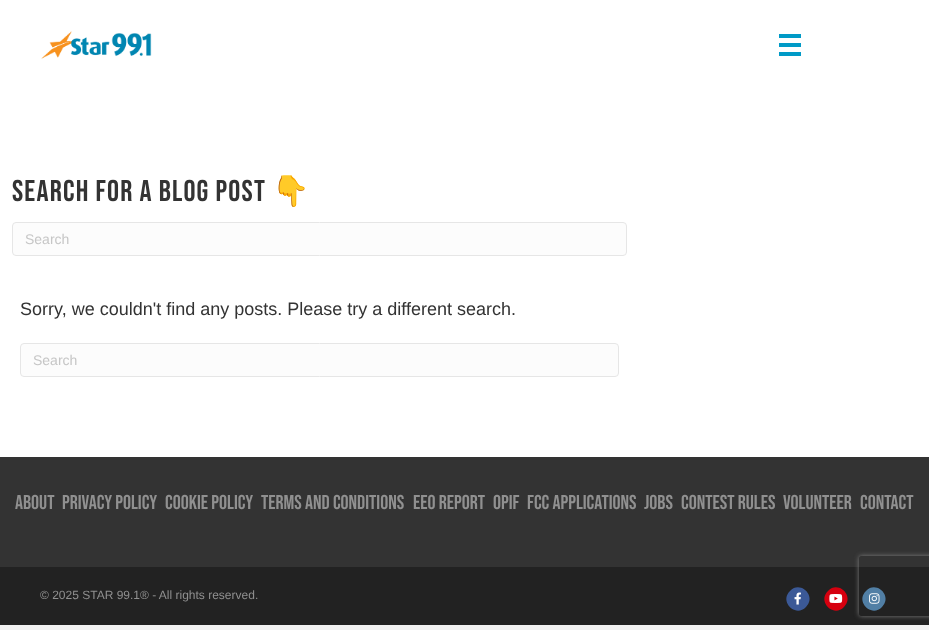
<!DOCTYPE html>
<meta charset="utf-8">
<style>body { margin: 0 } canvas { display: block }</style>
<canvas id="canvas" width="929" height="630"></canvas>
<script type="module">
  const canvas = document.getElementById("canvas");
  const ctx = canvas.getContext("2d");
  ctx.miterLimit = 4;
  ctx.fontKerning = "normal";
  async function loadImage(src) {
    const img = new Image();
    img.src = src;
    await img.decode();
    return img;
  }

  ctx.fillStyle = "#f2f2f2";
  ctx.fillRect(0, 0, 929, 630);
  ctx.fillStyle = "#ffffff";
  ctx.fillRect(0, 0, 929, 457);
  ctx.drawImage(await loadImage("img1.png"), 41, 31, 111, 28);
  ctx.fillStyle = "#009ac7";
  ctx.fillRect(779, 34, 22, 4);
  ctx.fillRect(779, 43, 22, 4);
  ctx.fillRect(779, 52, 22, 4);
  ctx.letterSpacing = "1.2px";
  ctx.font = "30px Bebas Neue";
  ctx.fillStyle = "#333333";
  ctx.fillText("Search for a blog post", 12, 201);
  ctx.font = "30px Noto Color Emoji";
  ctx.fillText("👇", 272, 201);
  ctx.fillStyle = "#fcfcfc";
  ctx.beginPath();
  ctx.roundRect(12.5, 222.5, 614, 33, 3.5);
  ctx.fill();
  ctx.strokeStyle = "#e6e6e6";
  ctx.stroke();
  ctx.letterSpacing = "0px";
  ctx.font = "14px Liberation Sans";
  ctx.fillStyle = "#c6c6c6";
  ctx.fillText("Search", 25, 244);
  ctx.font = "18px Liberation Sans";
  ctx.fillStyle = "#333333";
  ctx.fillText("Sorry, we couldn't find any posts. Please try a different search.", 20, 315);
  ctx.fillStyle = "#fcfcfc";
  ctx.beginPath();
  ctx.roundRect(20.5, 343.5, 598, 33, 3.5);
  ctx.fill();
  ctx.stroke();
  ctx.font = "14px Liberation Sans";
  ctx.fillStyle = "#c6c6c6";
  ctx.fillText("Search", 33, 365);
  ctx.fillStyle = "#333333";
  ctx.fillRect(0, 457, 929, 110);
  ctx.font = "20px Bebas Neue";
  ctx.fillStyle = "#909090";
  ctx.fillText("About", 15, 509);
  ctx.fillText("Privacy Policy", 62, 509);
  ctx.fillText("Cookie Policy", 165, 509);
  ctx.fillText("Terms and Conditions", 261, 509);
  ctx.fillText("EEO Report", 413, 509);
  ctx.fillText("OPIF", 493, 509);
  ctx.fillText("FCC Applications", 527, 509);
  ctx.fillText("Jobs", 644, 509);
  ctx.fillText("Contest Rules", 681, 509);
  ctx.fillText("Volunteer", 783, 509);
  ctx.fillText("Contact", 860, 509);
  ctx.fillStyle = "#222222";
  ctx.fillRect(0, 567, 929, 58);
  ctx.font = "12px Liberation Sans";
  ctx.fillStyle = "#909090";
  ctx.fillText("© 2025 STAR 99.1® - All rights reserved.", 40, 599);
  ctx.fillStyle = "#3b5997";
  ctx.beginPath();
  ctx.moveTo(790, 591);
  ctx.bezierCurveTo(800.5, 580, 817, 596.5, 806, 607);
  ctx.bezierCurveTo(795.5, 618, 779, 601.5, 790, 591);
  ctx.closePath();
  ctx.fill();
  ctx.drawImage(await loadImage("img2.png"), 794, 592, 7, 13);
  ctx.fillStyle = "#d6000f";
  ctx.beginPath();
  ctx.moveTo(828, 591);
  ctx.bezierCurveTo(838.5, 580, 855, 596.5, 844, 607);
  ctx.bezierCurveTo(833.5, 618, 817, 601.5, 828, 591);
  ctx.closePath();
  ctx.fill();
  ctx.drawImage(await loadImage("img3.png"), 829, 594, 14, 9);
  ctx.fillStyle = "#517fa5";
  ctx.beginPath();
  ctx.moveTo(866, 591);
  ctx.bezierCurveTo(876.5, 580, 893, 596.5, 882, 607);
  ctx.bezierCurveTo(871.5, 618, 855, 601.5, 866, 591);
  ctx.closePath();
  ctx.fill();
  ctx.drawImage(await loadImage("img4.png"), 869, 593, 11, 11);
  ctx.save();
  ctx.beginPath();
  ctx.moveTo(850, 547);
  ctx.lineTo(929, 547);
  ctx.lineTo(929, 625);
  ctx.lineTo(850, 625);
  ctx.closePath();
  ctx.moveTo(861, 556);
  ctx.lineTo(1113, 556);
  ctx.bezierCurveTo(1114, 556, 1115, 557, 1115, 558);
  ctx.lineTo(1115, 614);
  ctx.bezierCurveTo(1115, 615, 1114, 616, 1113, 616);
  ctx.lineTo(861, 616);
  ctx.bezierCurveTo(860, 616, 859, 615, 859, 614);
  ctx.lineTo(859, 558);
  ctx.bezierCurveTo(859, 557, 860, 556, 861, 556);
  ctx.closePath();
  ctx.clip("evenodd");
  ctx.fillStyle = "#808080";
  ctx.filter = "blur(2.5px)";
  ctx.beginPath();
  ctx.roundRect(859, 556, 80, 60, 2);
  ctx.fill();
  ctx.filter = "none";
  ctx.restore();
</script>
